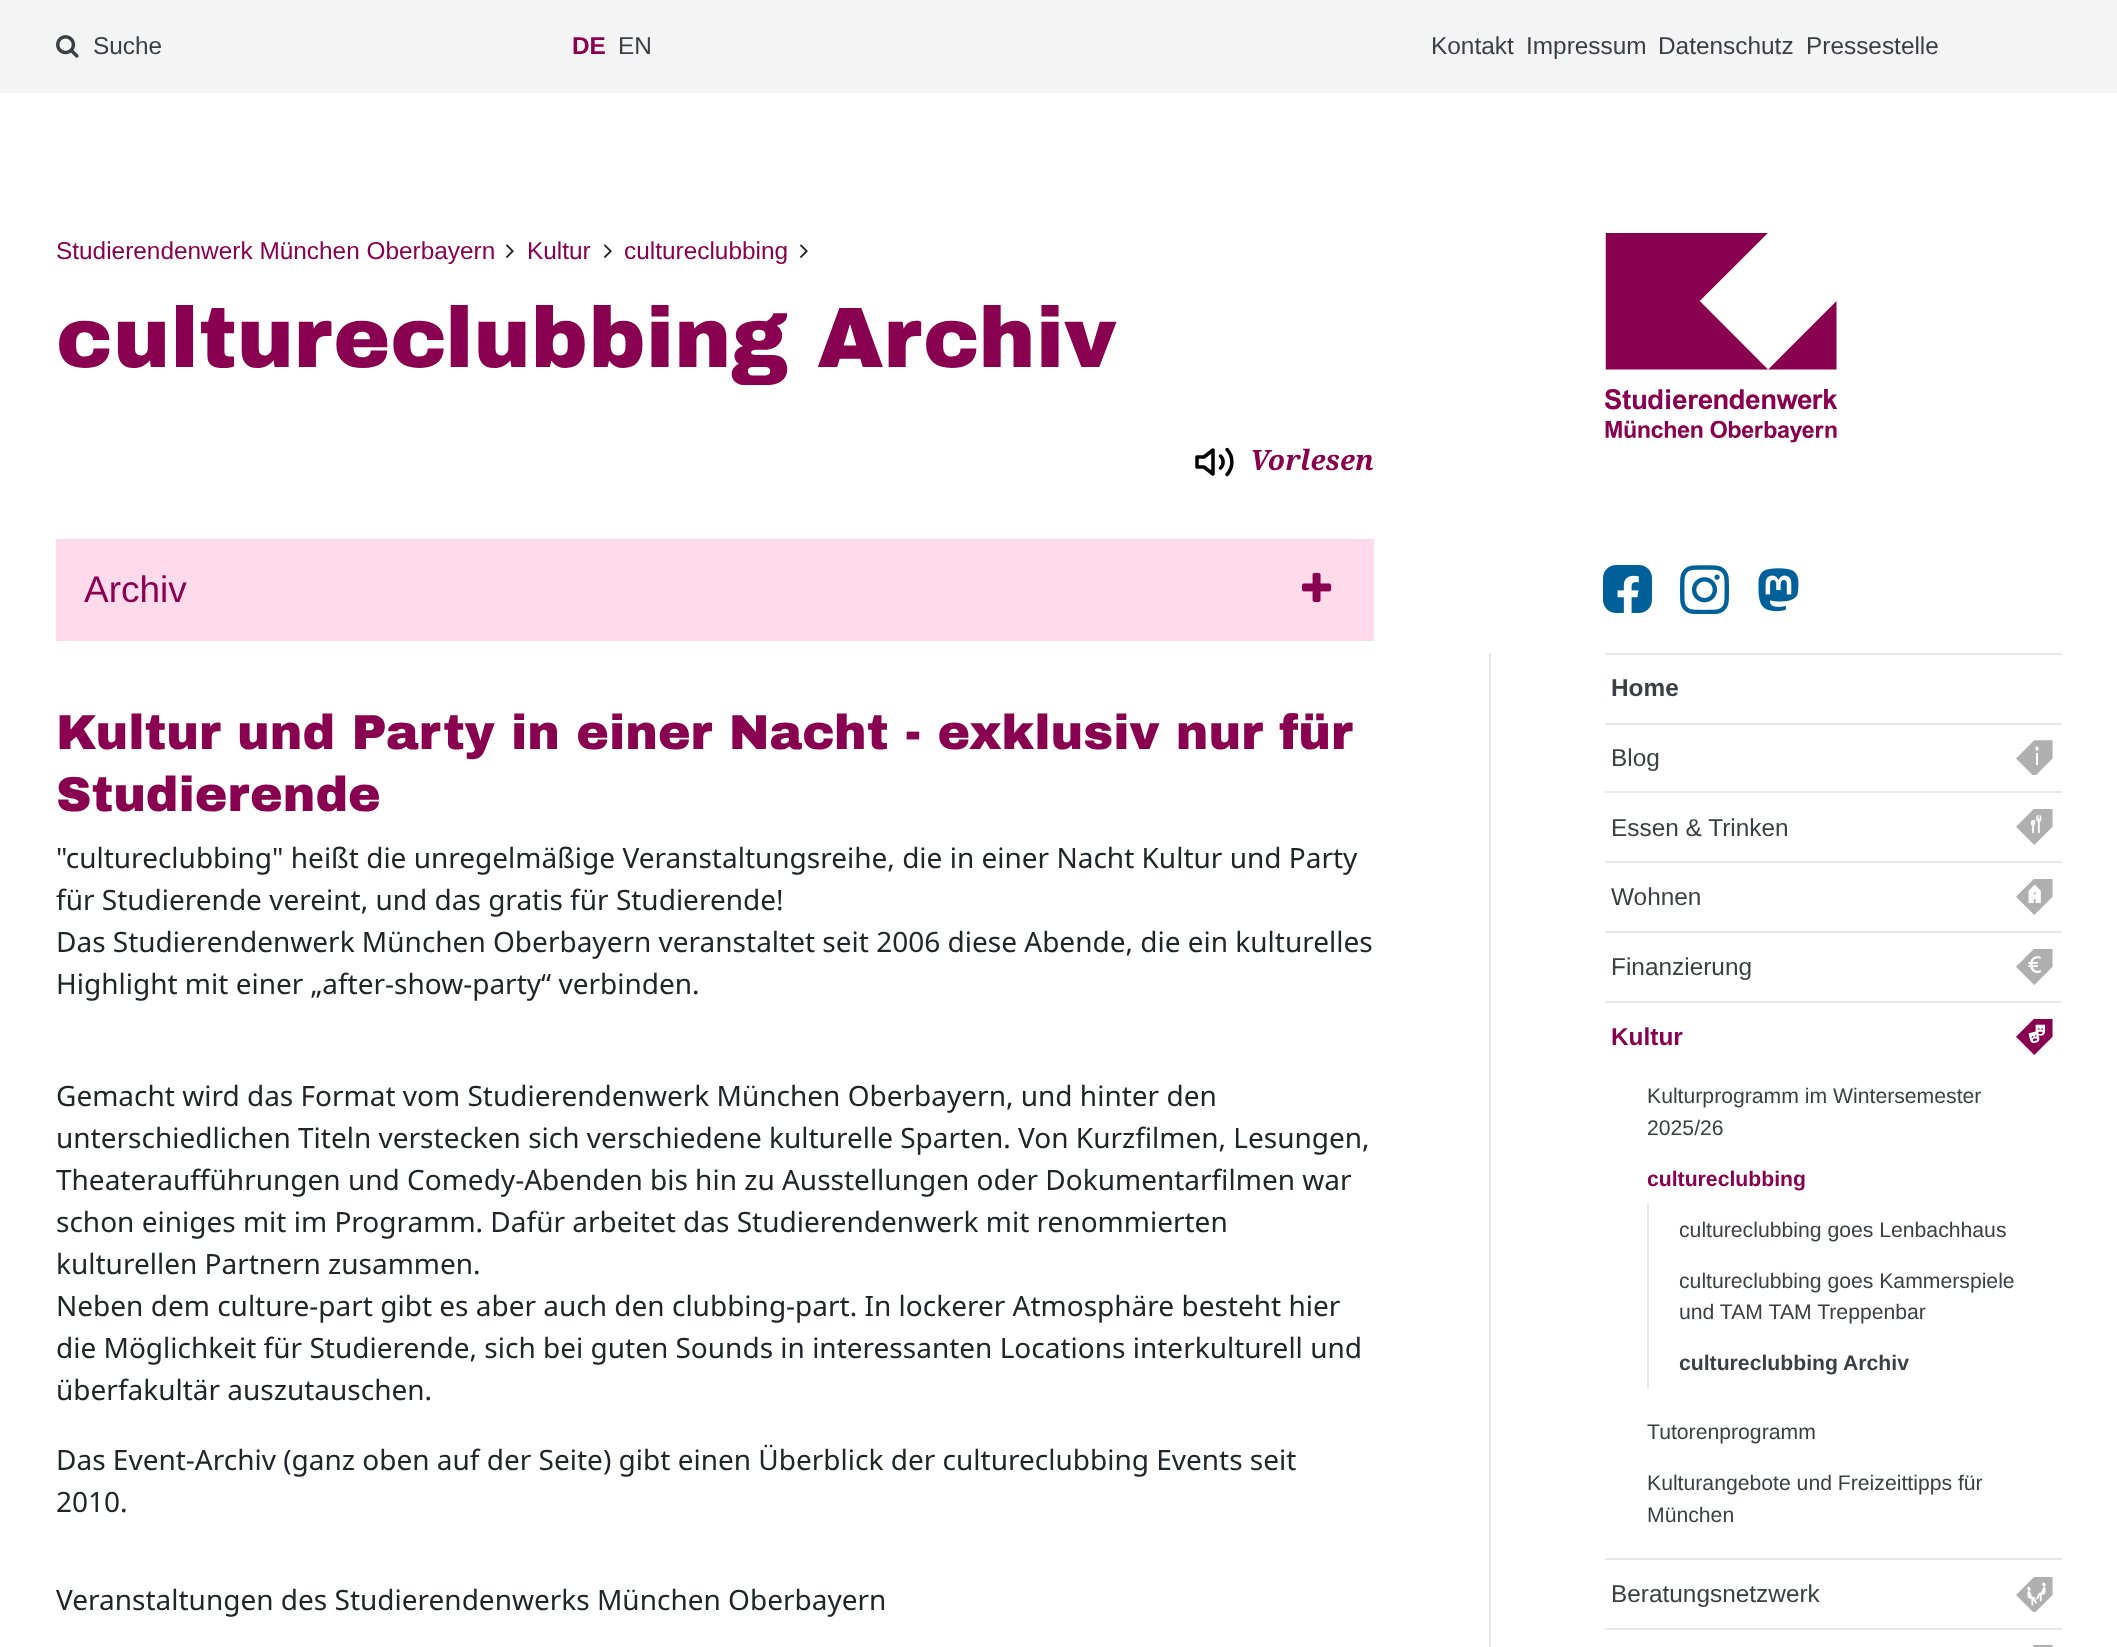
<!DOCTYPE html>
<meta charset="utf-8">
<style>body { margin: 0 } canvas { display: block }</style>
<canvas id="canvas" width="2117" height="1647"></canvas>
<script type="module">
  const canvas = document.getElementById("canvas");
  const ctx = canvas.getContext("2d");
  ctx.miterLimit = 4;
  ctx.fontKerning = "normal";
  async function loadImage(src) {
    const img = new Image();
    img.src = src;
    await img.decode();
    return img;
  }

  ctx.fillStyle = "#f4f4f4";
  ctx.fillRect(0, 0, 2117, 1647);
  ctx.drawImage(await loadImage("img1.png"), 56, 35, 23, 23);
  ctx.font = "24.4px Liberation Sans";
  ctx.fillStyle = "#3b3e43";
  ctx.fillText("Suche", 93, 54);
  ctx.font = "bold 24.4px Liberation Sans";
  ctx.fillStyle = "#8a0050";
  ctx.fillText("DE", 572, 54);
  ctx.font = "24.4px Liberation Sans";
  ctx.fillStyle = "#3b3e43";
  ctx.fillText("EN", 618, 54);
  ctx.fillText("Kontakt", 1431, 54);
  ctx.fillText("Impressum", 1526, 54);
  ctx.fillText("Datenschutz", 1658, 54);
  ctx.fillText("Pressestelle", 1806, 54);
  ctx.fillStyle = "#ffffff";
  ctx.fillRect(0, 93, 2117, 1554);
  ctx.fillStyle = "#8a0050";
  ctx.fillText("Studierendenwerk München Oberbayern", 56, 259);
  ctx.drawImage(await loadImage("img2.png"), 506, 244, 8, 14);
  ctx.fillText("Kultur", 527, 259);
  ctx.drawImage(await loadImage("img2.png"), 604, 244, 8, 14);
  ctx.fillText("cultureclubbing", 624, 259);
  ctx.drawImage(await loadImage("img2.png"), 800, 244, 8, 14);
  ctx.font = "900 85.6px Archivo Black";
  ctx.fillText("cultureclubbing Archiv", 56, 367);
  ctx.beginPath();
  ctx.moveTo(1213, 450);
  ctx.lineTo(1204, 457);
  ctx.lineTo(1197, 457);
  ctx.lineTo(1197, 467);
  ctx.lineTo(1204, 467);
  ctx.lineTo(1213, 474);
  ctx.closePath();
  ctx.moveTo(1227, 449.5);
  ctx.bezierCurveTo(1233.5, 456.5, 1233.5, 467.5, 1227, 474.5);
  ctx.moveTo(1220.5, 456);
  ctx.bezierCurveTo(1224, 459, 1224, 465, 1220.5, 468);
  ctx.strokeStyle = "#000000";
  ctx.lineWidth = 3.5;
  ctx.lineCap = "round";
  ctx.lineJoin = "round";
  ctx.stroke();
  ctx.font = "italic bold 28px Droid Serif";
  ctx.fillText("Vorlesen", 1250, 470);
  ctx.fillStyle = "#ffdaea";
  ctx.fillRect(56, 539, 1318, 102);
  ctx.font = "37px Liberation Sans";
  ctx.fillStyle = "#8a0050";
  ctx.fillText("Archiv", 84, 602);
  ctx.drawImage(await loadImage("img3.png"), 1302, 572, 30, 30);
  ctx.font = "900 49px Archivo Black";
  ctx.fillText("Kultur und Party in einer Nacht - exklusiv nur für", 56, 749);
  ctx.fillText("Studierende", 56, 811);
  ctx.font = "28px Noto Sans";
  ctx.fillStyle = "#212529";
  ctx.fillText("\"cultureclubbing\" heißt die unregelmäßige Veranstaltungsreihe, die in einer Nacht Kultur und Party", 56, 868);
  ctx.fillText("für Studierende vereint, und das gratis für Studierende!", 56, 910);
  ctx.fillText("Das Studierendenwerk München Oberbayern veranstaltet seit 2006 diese Abende, die ein kulturelles", 56, 952);
  ctx.fillText("Highlight mit einer „after-show-party“ verbinden.", 56, 994);
  ctx.fillText("Gemacht wird das Format vom Studierendenwerk München Oberbayern, und hinter den", 56, 1106);
  ctx.fillText("unterschiedlichen Titeln verstecken sich verschiedene kulturelle Sparten. Von Kurzfilmen, Lesungen,", 56, 1148);
  ctx.fillText("Theateraufführungen und Comedy-Abenden bis hin zu Ausstellungen oder Dokumentarfilmen war", 56, 1190);
  ctx.fillText("schon einiges mit im Programm. Dafür arbeitet das Studierendenwerk mit renommierten", 56, 1232);
  ctx.fillText("kulturellen Partnern zusammen.", 56, 1274);
  ctx.fillText("Neben dem culture-part gibt es aber auch den clubbing-part. In lockerer Atmosphäre besteht hier", 56, 1316);
  ctx.fillText("die Möglichkeit für Studierende, sich bei guten Sounds in interessanten Locations interkulturell und", 56, 1358);
  ctx.fillText("überfakultär auszutauschen.", 56, 1400);
  ctx.fillText("Das Event-Archiv (ganz oben auf der Seite) gibt einen Überblick der cultureclubbing Events seit", 56, 1470);
  ctx.fillText("2010.", 56, 1512);
  ctx.fillText("Veranstaltungen des Studierendenwerks München Oberbayern", 56, 1610);
  ctx.drawImage(await loadImage("img4.png"), 1605, 233, 233, 210);
  ctx.drawImage(await loadImage("img5.png"), 1603, 565, 49, 48);
  ctx.drawImage(await loadImage("img6.png"), 1680, 565, 49, 49);
  ctx.drawImage(await loadImage("img7.png"), 1758, 568, 41, 44);
  ctx.fillStyle = "#e7e7e7";
  ctx.fillRect(1489, 653, 2, 994);
  ctx.fillRect(1605, 653, 457, 2);
  ctx.fillRect(1605, 723, 457, 2);
  ctx.font = "bold 24.4px Liberation Sans";
  ctx.fillStyle = "#3b3e43";
  ctx.fillText("Home", 1611, 696);
  ctx.fillStyle = "#e7e7e7";
  ctx.fillRect(1605, 791, 457, 2);
  ctx.drawImage(await loadImage("img8.png"), 2016, 740, 37, 35);
  ctx.font = "24.4px Liberation Sans";
  ctx.fillStyle = "#3b3e43";
  ctx.fillText("Blog", 1611, 766);
  ctx.fillStyle = "#e7e7e7";
  ctx.fillRect(1605, 861, 457, 2);
  ctx.drawImage(await loadImage("img9.png"), 2016, 809, 37, 36);
  ctx.fillStyle = "#3b3e43";
  ctx.fillText("Essen & Trinken", 1611, 836);
  ctx.fillStyle = "#e7e7e7";
  ctx.fillRect(1605, 931, 457, 2);
  ctx.drawImage(await loadImage("img10.png"), 2016, 879, 37, 36);
  ctx.fillStyle = "#3b3e43";
  ctx.fillText("Wohnen", 1611, 905);
  ctx.fillStyle = "#e7e7e7";
  ctx.fillRect(1605, 1001, 457, 2);
  ctx.drawImage(await loadImage("img11.png"), 2016, 949, 37, 36);
  ctx.fillStyle = "#3b3e43";
  ctx.fillText("Finanzierung", 1611, 975);
  ctx.fillStyle = "#e7e7e7";
  ctx.fillRect(1605, 1558, 457, 2);
  ctx.drawImage(await loadImage("img12.png"), 2016, 1019, 37, 36);
  ctx.font = "bold 24.4px Liberation Sans";
  ctx.fillStyle = "#8a0050";
  ctx.fillText("Kultur", 1611, 1045);
  ctx.font = "21.2px Liberation Sans";
  ctx.fillStyle = "#3b3e43";
  ctx.fillText("Kulturprogramm im Wintersemester", 1647, 1103);
  ctx.fillText("2025/26", 1647, 1135);
  ctx.font = "bold 21.2px Liberation Sans";
  ctx.fillStyle = "#8a0050";
  ctx.fillText("cultureclubbing", 1647, 1186);
  ctx.fillStyle = "#e7e7e7";
  ctx.fillRect(1647, 1204, 2, 184);
  ctx.font = "21.2px Liberation Sans";
  ctx.fillStyle = "#3b3e43";
  ctx.fillText("cultureclubbing goes Lenbachhaus", 1679, 1237);
  ctx.fillText("cultureclubbing goes Kammerspiele", 1679, 1288);
  ctx.fillText("und TAM TAM Treppenbar", 1679, 1319);
  ctx.font = "bold 21.2px Liberation Sans";
  ctx.fillText("cultureclubbing Archiv", 1679, 1370);
  ctx.font = "21.2px Liberation Sans";
  ctx.fillText("Tutorenprogramm", 1647, 1439);
  ctx.fillText("Kulturangebote und Freizeittipps für", 1647, 1490);
  ctx.fillText("München", 1647, 1522);
  ctx.fillStyle = "#e7e7e7";
  ctx.fillRect(1605, 1628, 457, 2);
  ctx.drawImage(await loadImage("img13.png"), 2016, 1577, 37, 35);
  ctx.font = "24.4px Liberation Sans";
  ctx.fillStyle = "#3b3e43";
  ctx.fillText("Beratungsnetzwerk", 1611, 1602);
  ctx.drawImage(await loadImage("img14.png"), 2032, 1645, 21, 2);
</script>
